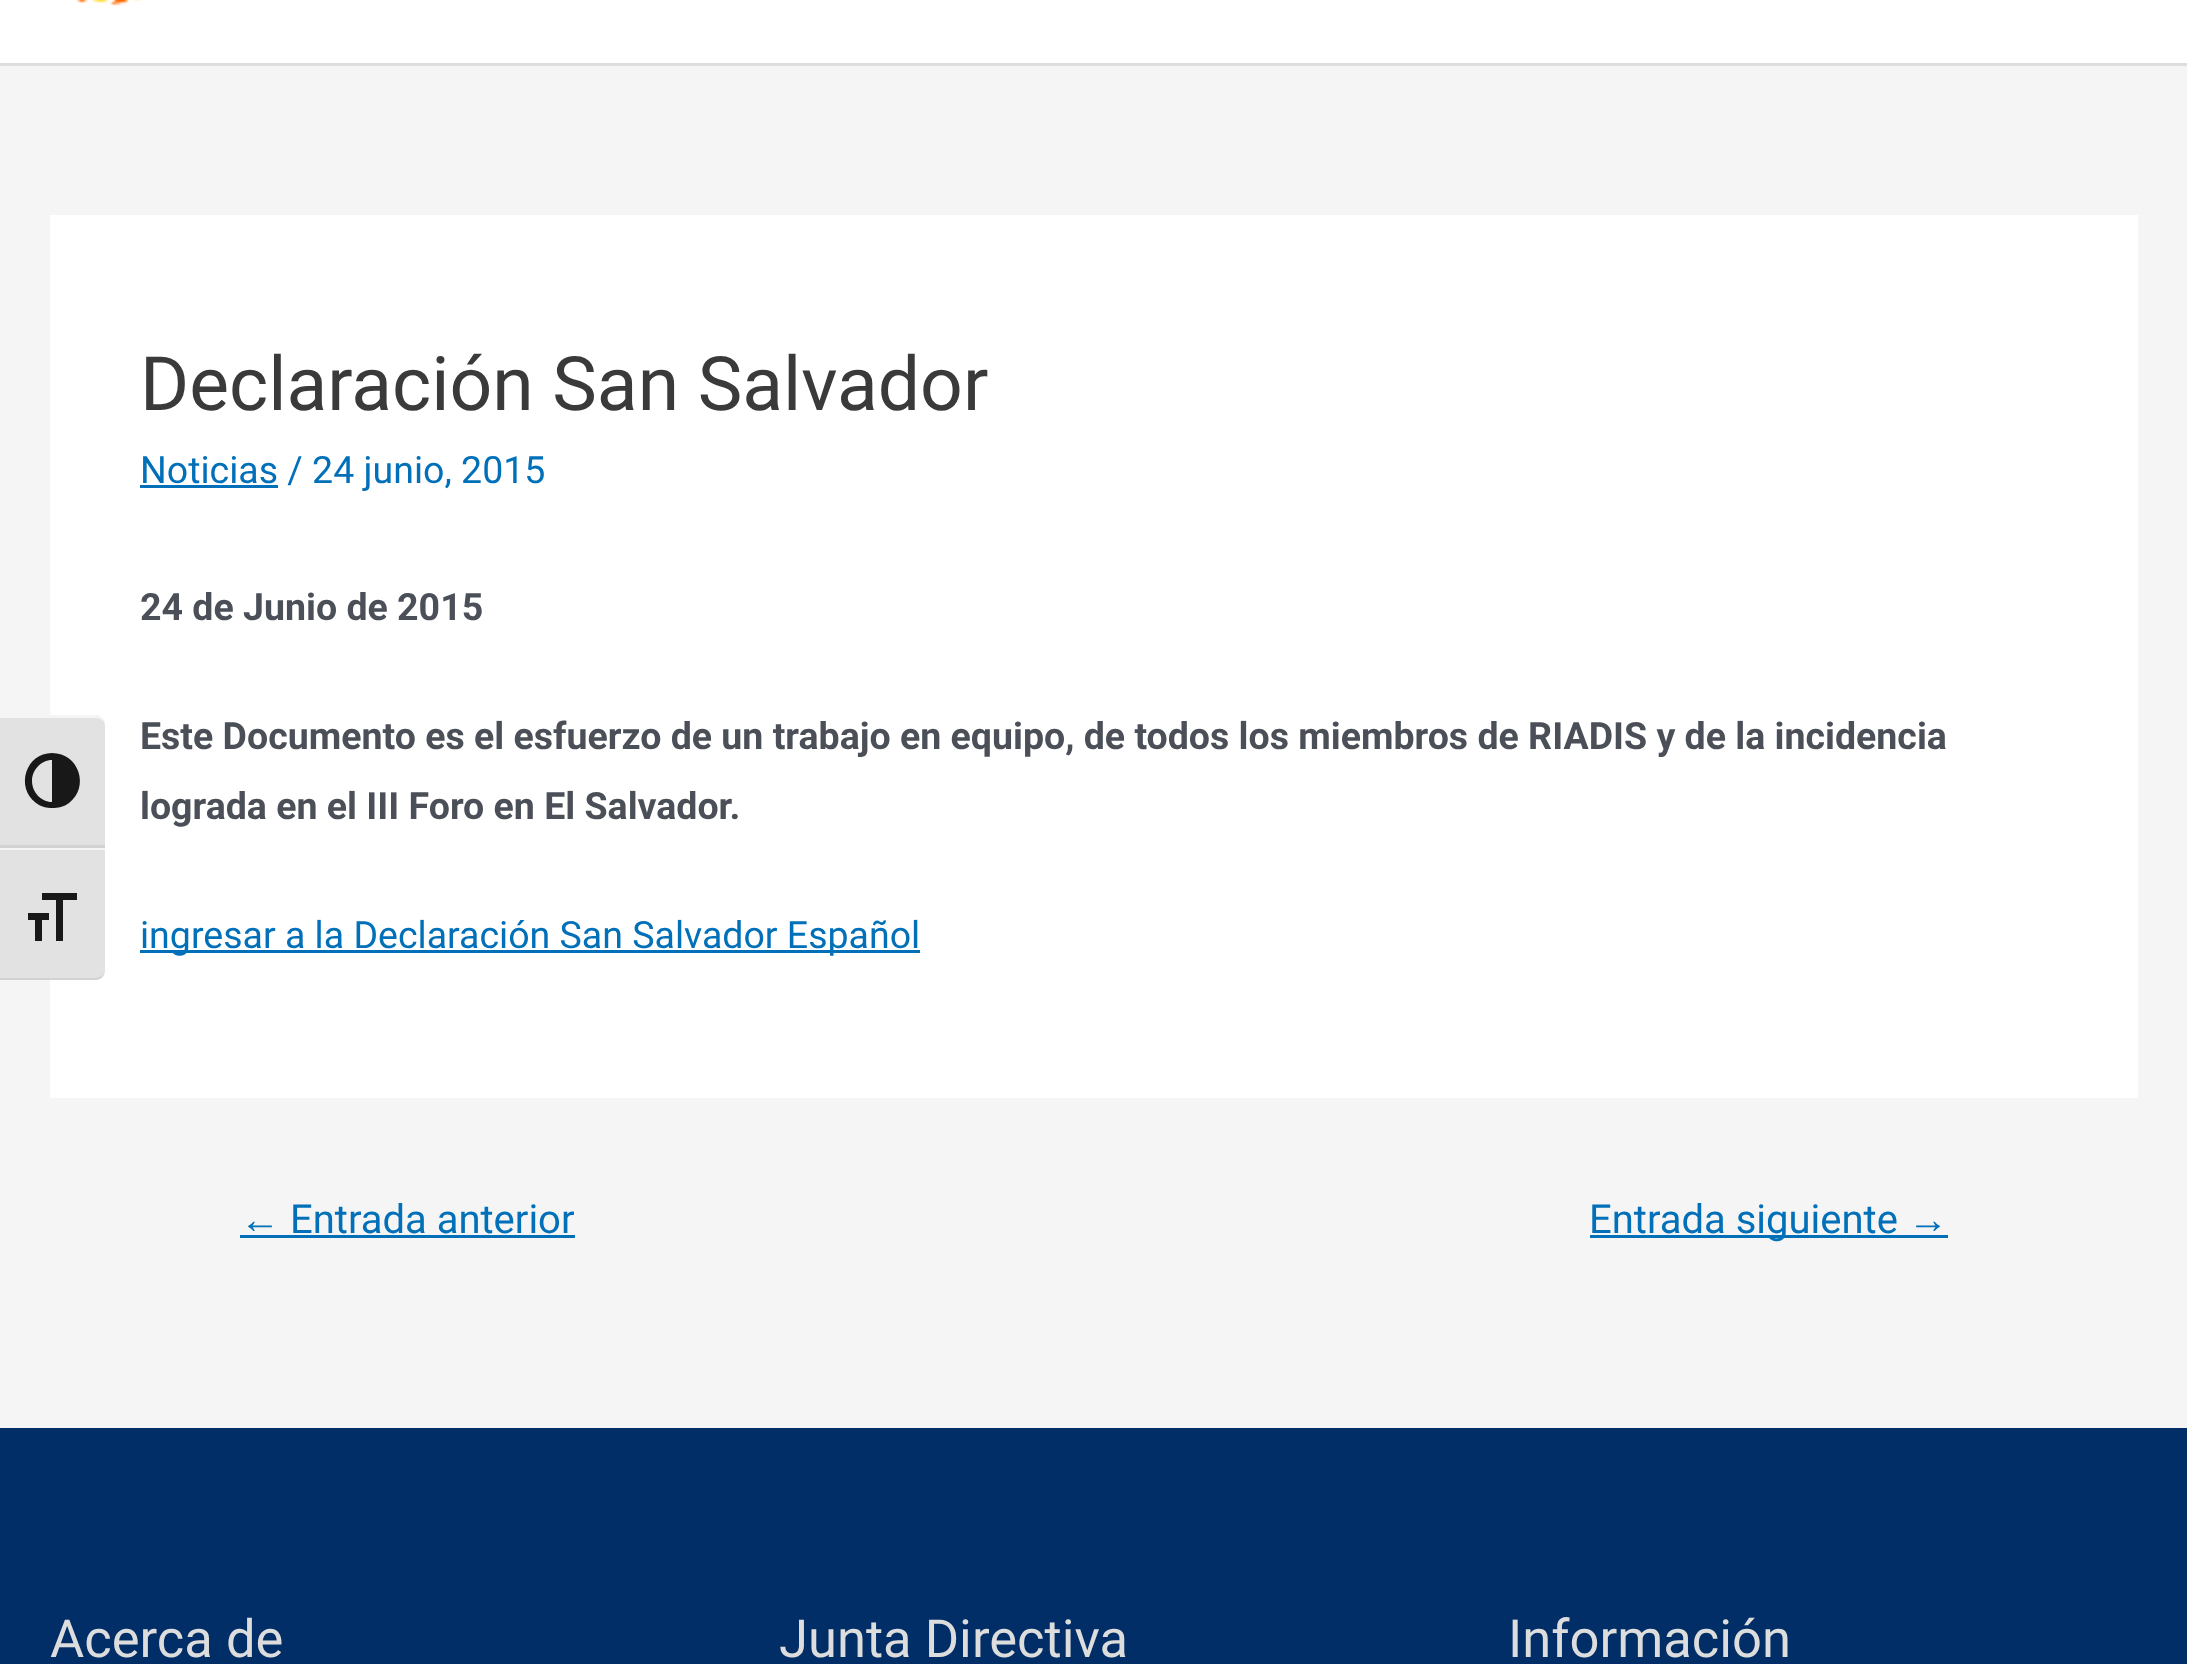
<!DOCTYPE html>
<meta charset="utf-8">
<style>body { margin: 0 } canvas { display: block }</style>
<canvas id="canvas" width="2187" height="1664"></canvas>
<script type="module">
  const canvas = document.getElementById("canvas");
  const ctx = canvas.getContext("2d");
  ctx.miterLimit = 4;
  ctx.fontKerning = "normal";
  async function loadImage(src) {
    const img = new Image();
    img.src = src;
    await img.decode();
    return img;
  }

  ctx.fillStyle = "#f5f5f5";
  ctx.fillRect(0, 0, 2187, 1664);
  ctx.fillStyle = "#ffffff";
  ctx.fillRect(0, 0, 2187, 63);
  ctx.fillStyle = "#dddddd";
  ctx.fillRect(0, 63, 2187, 3);
  ctx.drawImage(await loadImage("img1.png"), 76, 0, 67, 6);
  ctx.fillStyle = "#ffffff";
  ctx.fillRect(50, 215, 2088, 883);
  ctx.font = "75px Roboto";
  ctx.fillStyle = "#3a3a3a";
  ctx.fillText("Declaración San Salvador", 140, 410);
  ctx.fillStyle = "#0170b9";
  ctx.fillRect(140, 485, 138, 3);
  ctx.font = "37.5px Roboto";
  ctx.fillText("Noticias / 24 junio, 2015", 140, 483);
  ctx.font = "bold 37.5px Roboto";
  ctx.fillStyle = "#4b4f58";
  ctx.fillText("24 de Junio de 2015", 140, 620);
  ctx.fillText("Este Documento es el esfuerzo de un trabajo en equipo, de todos los miembros de RIADIS y de la incidencia", 140, 749);
  ctx.fillText("lograda en el III Foro en El Salvador.", 140, 819);
  ctx.fillStyle = "#0170b9";
  ctx.fillRect(140, 950, 780, 3);
  ctx.font = "37.5px Roboto";
  ctx.fillText("ingresar a la Declaración San Salvador Español", 140, 948);
  ctx.font = "40px Liberation Sans";
  ctx.fillText("←", 240, 1233);
  ctx.fillRect(240, 1235, 335, 3);
  ctx.font = "40px Roboto";
  ctx.fillText("Entrada anterior", 290, 1233);
  ctx.fillRect(1590, 1235, 358, 3);
  ctx.fillText("Entrada siguiente", 1589, 1233);
  ctx.font = "40px Liberation Sans";
  ctx.fillText("→", 1908, 1233);
  ctx.fillStyle = "#012e67";
  ctx.fillRect(0, 1428, 2187, 236);
  ctx.font = "52.5px Roboto";
  ctx.fillStyle = "#dddddd";
  ctx.fillText("Acerca de", 50, 1657);
  ctx.fillText("Junta Directiva", 779, 1657);
  ctx.fillText("Información", 1508, 1657);
  ctx.fillStyle = "#e2e2e2";
  ctx.beginPath();
  ctx.roundRect(0, 715, 105, 133, [0, 10, 0, 0]);
  ctx.fill();
  ctx.fillStyle = "#f5f5f5";
  ctx.beginPath();
  ctx.moveTo(0, 715);
  ctx.lineTo(0, 718);
  ctx.lineTo(95, 718);
  ctx.bezierCurveTo(101, 718, 105, 721, 105, 725);
  ctx.bezierCurveTo(105, 719, 101, 715, 95, 715);
  ctx.closePath();
  ctx.fill();
  ctx.fillStyle = "#d2d2d2";
  ctx.fillRect(0, 845, 105, 3);
  ctx.fillStyle = "#181818";
  ctx.beginPath();
  ctx.moveTo(52, 753);
  ctx.bezierCurveTo(26, 753, 15, 787, 36, 803);
  ctx.bezierCurveTo(41, 807, 47, 808, 52, 808);
  ctx.bezierCurveTo(58, 808, 64, 807, 69, 803);
  ctx.bezierCurveTo(90, 787, 79, 753, 52, 753);
  ctx.closePath();
  ctx.moveTo(32, 781);
  ctx.bezierCurveTo(32, 770, 41, 760, 52, 760);
  ctx.lineTo(52, 802);
  ctx.bezierCurveTo(41, 802, 32, 792, 32, 781);
  ctx.closePath();
  ctx.fill();
  ctx.fillStyle = "#e2e2e2";
  ctx.beginPath();
  ctx.roundRect(0, 848, 105, 132, [0, 0, 10, 0]);
  ctx.fill();
  ctx.fillStyle = "#f5f5f5";
  ctx.fillRect(0, 848, 105, 2);
  ctx.fillStyle = "#d2d2d2";
  ctx.beginPath();
  ctx.moveTo(0, 978);
  ctx.lineTo(0, 980);
  ctx.lineTo(95, 980);
  ctx.bezierCurveTo(101, 980, 105, 976, 105, 970);
  ctx.bezierCurveTo(105, 974, 101, 978, 95, 978);
  ctx.closePath();
  ctx.fill();
  ctx.fillStyle = "#181818";
  ctx.beginPath();
  ctx.moveTo(28, 913);
  ctx.lineTo(49, 913);
  ctx.lineTo(49, 920);
  ctx.lineTo(42, 920);
  ctx.lineTo(42, 941);
  ctx.lineTo(35, 941);
  ctx.lineTo(35, 920);
  ctx.lineTo(28, 920);
  ctx.closePath();
  ctx.moveTo(77, 900);
  ctx.lineTo(63, 900);
  ctx.lineTo(63, 941);
  ctx.lineTo(56, 941);
  ctx.lineTo(56, 900);
  ctx.lineTo(42, 900);
  ctx.lineTo(42, 893);
  ctx.lineTo(77, 893);
  ctx.closePath();
  ctx.fill();
</script>
